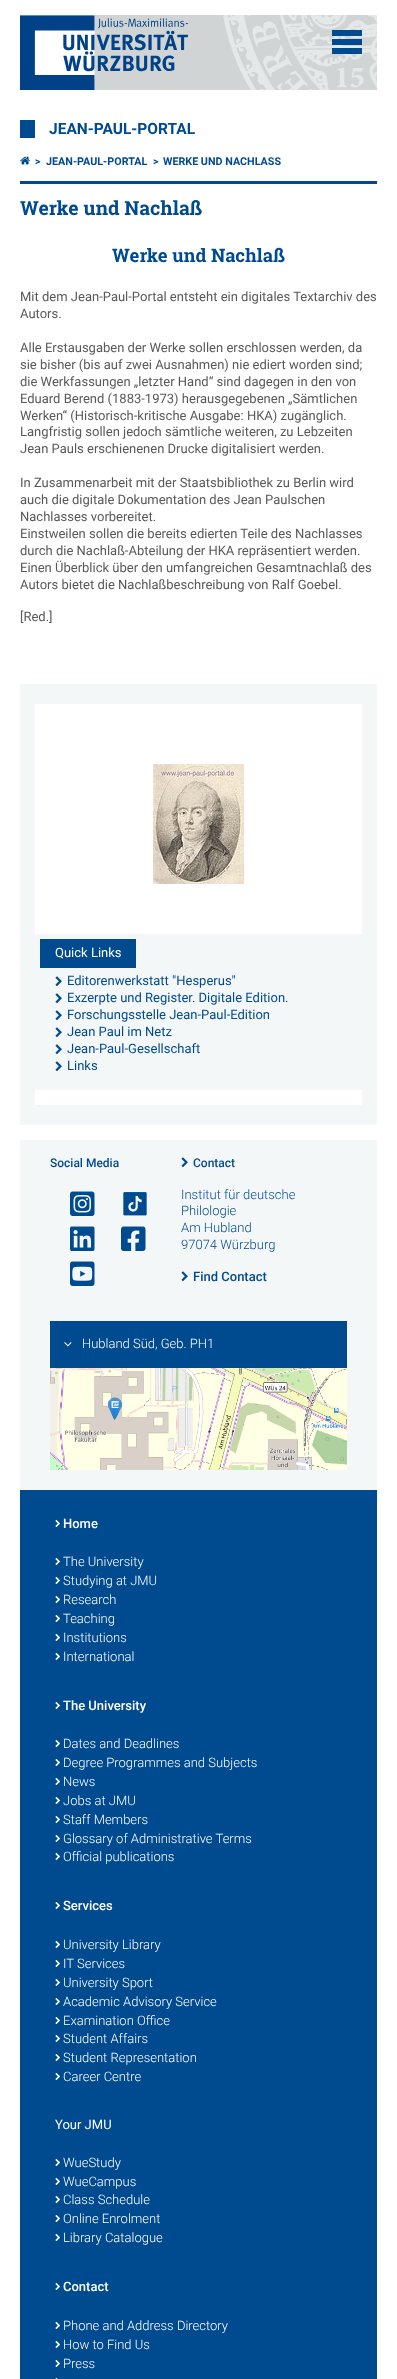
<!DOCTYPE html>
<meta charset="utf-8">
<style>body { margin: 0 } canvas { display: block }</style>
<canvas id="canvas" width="397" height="2379"></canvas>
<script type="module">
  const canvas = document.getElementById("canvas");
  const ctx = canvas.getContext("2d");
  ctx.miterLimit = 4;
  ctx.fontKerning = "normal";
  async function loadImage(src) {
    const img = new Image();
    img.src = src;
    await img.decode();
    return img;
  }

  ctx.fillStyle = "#ffffff";
  ctx.fillRect(0, 0, 397, 2379);
  ctx.fillStyle = "#d1d4d4";
  ctx.fillRect(20, 15, 357, 75);
  ctx.drawImage(await loadImage("img1.png"), 223, 15, 154, 75);
  ctx.drawImage(await loadImage("img2.png"), 20, 15, 169, 75);
  ctx.fillStyle = "#004a8f";
  ctx.fillRect(332, 30, 30, 6);
  ctx.fillRect(332, 39, 30, 6);
  ctx.fillRect(332, 48, 30, 6);
  ctx.fillRect(20, 120, 15, 18);
  ctx.font = "bold 15.5px Roboto";
  ctx.fillText("JEAN-PAUL-PORTAL", 49, 134);
  ctx.fillRect(20, 181, 357, 3);
  ctx.drawImage(await loadImage("img3.png"), 20, 156, 10, 9);
  ctx.font = "bold 10.75px Roboto";
  ctx.fillText(">", 35, 165);
  ctx.fillText("JEAN-PAUL-PORTAL", 46, 165);
  ctx.fillText(">", 153, 165);
  ctx.fillText("WERKE UND NACHLASS", 163, 165);
  ctx.font = "bold 19.5px Roboto Slab";
  ctx.fillText("Werke und Nachlaß", 20, 215);
  ctx.font = "bold 18.5px Roboto Slab";
  ctx.fillText("Werke und Nachlaß", 112, 262);
  ctx.font = "13px Roboto";
  ctx.fillStyle = "#595959";
  ctx.fillText("Mit dem Jean-Paul-Portal entsteht ein digitales Textarchiv des", 20, 301);
  ctx.fillText("Autors.", 20, 318);
  ctx.fillText("Alle Erstausgaben der Werke sollen erschlossen werden, da", 20, 352);
  ctx.fillText("sie bisher (bis auf zwei Ausnahmen) nie ediert worden sind;", 20, 369);
  ctx.fillText("die Werkfassungen „letzter Hand“ sind dagegen in den von", 20, 386);
  ctx.fillText("Eduard Berend (1883-1973) herausgegebenen „Sämtlichen", 20, 403);
  ctx.fillText("Werken“ (Historisch-kritische Ausgabe: HKA) zugänglich.", 20, 420);
  ctx.fillText("Langfristig sollen jedoch sämtliche weiteren, zu Lebzeiten", 20, 436);
  ctx.fillText("Jean Pauls erschienenen Drucke digitalisiert werden.", 20, 453);
  ctx.fillText("In Zusammenarbeit mit der Staatsbibliothek zu Berlin wird", 20, 487);
  ctx.fillText("auch die digitale Dokumentation des Jean Paulschen", 20, 504);
  ctx.fillText("Nachlasses vorbereitet.", 20, 521);
  ctx.fillText("Einstweilen sollen die bereits edierten Teile des Nachlasses", 20, 538);
  ctx.fillText("durch die Nachlaß-Abteilung der HKA repräsentiert werden.", 20, 555);
  ctx.fillText("Einen Überblick über den umfangreichen Gesamtnachlaß des", 20, 572);
  ctx.fillText("Autors bietet die Nachlaßbeschreibung von Ralf Goebel.", 20, 589);
  ctx.fillText("[Red.]", 20, 621);
  ctx.fillStyle = "#f4f7f7";
  ctx.fillRect(35, 684, 327, 20);
  ctx.fillRect(362, 684, 15, 421);
  ctx.fillRect(35, 1105, 342, 20);
  ctx.fillRect(20, 684, 15, 441);
  ctx.drawImage(await loadImage("img4.png"), 153, 764, 91, 120);
  ctx.fillRect(35, 934, 327, 156);
  ctx.fillStyle = "#004a8f";
  ctx.fillRect(40, 939, 96, 29);
  ctx.fillStyle = "#ffffff";
  ctx.fillText("Quick Links", 55, 957);
  ctx.drawImage(await loadImage("img5.png"), 55, 976, 7, 11);
  ctx.fillStyle = "#004a8f";
  ctx.fillText("Editorenwerkstatt \"Hesperus\"", 67, 985);
  ctx.drawImage(await loadImage("img5.png"), 55, 993, 7, 11);
  ctx.fillText("Exzerpte und Register. Digitale Edition.", 67, 1002);
  ctx.drawImage(await loadImage("img5.png"), 55, 1010, 7, 11);
  ctx.fillText("Forschungsstelle Jean-Paul-Edition", 67, 1019);
  ctx.drawImage(await loadImage("img5.png"), 55, 1027, 7, 11);
  ctx.fillText("Jean Paul im Netz", 67, 1036);
  ctx.drawImage(await loadImage("img5.png"), 55, 1044, 7, 11);
  ctx.fillText("Jean-Paul-Gesellschaft", 67, 1053);
  ctx.drawImage(await loadImage("img5.png"), 55, 1061, 7, 11);
  ctx.fillText("Links", 67, 1070);
  ctx.fillStyle = "#f4f7f7";
  ctx.fillRect(20, 1140, 357, 350);
  ctx.font = "500 12px Roboto";
  ctx.fillStyle = "#004a8f";
  ctx.fillText("Social Media", 50, 1167);
  ctx.drawImage(await loadImage("img6.png"), 70, 1191, 25, 25);
  ctx.drawImage(await loadImage("img7.png"), 123, 1192, 24, 24);
  ctx.drawImage(await loadImage("img8.png"), 70, 1226, 25, 25);
  ctx.drawImage(await loadImage("img9.png"), 121, 1226, 25, 25);
  ctx.drawImage(await loadImage("img10.png"), 70, 1261, 25, 25);
  ctx.drawImage(await loadImage("img5.png"), 181, 1157, 7, 11);
  ctx.fillText("Contact", 193, 1167);
  ctx.font = "300 13px Roboto";
  ctx.fillText("Institut für deutsche", 181, 1199);
  ctx.fillText("Philologie", 181, 1215);
  ctx.fillText("Am Hubland", 181, 1232);
  ctx.fillText("97074 Würzburg", 181, 1249);
  ctx.drawImage(await loadImage("img5.png"), 181, 1271, 7, 11);
  ctx.font = "500 13px Roboto";
  ctx.fillText("Find Contact", 193, 1281);
  ctx.fillRect(50, 1321, 297, 47);
  ctx.drawImage(await loadImage("img11.png"), 64, 1342, 8, 5);
  ctx.font = "300 13px Roboto";
  ctx.fillStyle = "#ffffff";
  ctx.fillText("Hubland Süd, Geb. PH1", 82, 1348);
  ctx.drawImage(await loadImage("img12.png"), 50, 1368, 297, 102);
  ctx.fillStyle = "#004a8f";
  ctx.fillRect(20, 1490, 357, 889);
  ctx.drawImage(await loadImage("img13.png"), 55, 1519, 5, 9);
  ctx.font = "500 13px Roboto";
  ctx.fillStyle = "#ffffff";
  ctx.fillText("Home", 63, 1528);
  ctx.drawImage(await loadImage("img13.png"), 55, 1557, 5, 9);
  ctx.font = "300 13px Roboto";
  ctx.fillText("The University", 63, 1566);
  ctx.drawImage(await loadImage("img13.png"), 55, 1576, 5, 9);
  ctx.fillText("Studying at JMU", 63, 1585);
  ctx.drawImage(await loadImage("img13.png"), 55, 1595, 5, 9);
  ctx.fillText("Research", 63, 1604);
  ctx.drawImage(await loadImage("img13.png"), 55, 1614, 5, 9);
  ctx.fillText("Teaching", 63, 1623);
  ctx.drawImage(await loadImage("img13.png"), 55, 1633, 5, 9);
  ctx.fillText("Institutions", 63, 1642);
  ctx.drawImage(await loadImage("img13.png"), 55, 1652, 5, 9);
  ctx.fillText("International", 63, 1661);
  ctx.drawImage(await loadImage("img13.png"), 55, 1701, 5, 9);
  ctx.font = "500 13px Roboto";
  ctx.fillText("The University", 63, 1710);
  ctx.drawImage(await loadImage("img13.png"), 55, 1739, 5, 9);
  ctx.font = "300 13px Roboto";
  ctx.fillText("Dates and Deadlines", 63, 1748);
  ctx.drawImage(await loadImage("img13.png"), 55, 1758, 5, 9);
  ctx.fillText("Degree Programmes and Subjects", 63, 1767);
  ctx.drawImage(await loadImage("img13.png"), 55, 1777, 5, 9);
  ctx.fillText("News", 63, 1786);
  ctx.drawImage(await loadImage("img13.png"), 55, 1796, 5, 9);
  ctx.fillText("Jobs at JMU", 63, 1805);
  ctx.drawImage(await loadImage("img13.png"), 55, 1815, 5, 9);
  ctx.fillText("Staff Members", 63, 1824);
  ctx.drawImage(await loadImage("img13.png"), 55, 1834, 5, 9);
  ctx.fillText("Glossary of Administrative Terms", 63, 1843);
  ctx.drawImage(await loadImage("img13.png"), 55, 1852, 5, 9);
  ctx.fillText("Official publications", 63, 1861);
  ctx.drawImage(await loadImage("img13.png"), 55, 1901, 5, 9);
  ctx.font = "500 13px Roboto";
  ctx.fillText("Services", 63, 1910);
  ctx.drawImage(await loadImage("img13.png"), 55, 1940, 5, 9);
  ctx.font = "300 13px Roboto";
  ctx.fillText("University Library", 63, 1949);
  ctx.drawImage(await loadImage("img13.png"), 55, 1959, 5, 9);
  ctx.fillText("IT Services", 63, 1968);
  ctx.drawImage(await loadImage("img13.png"), 55, 1978, 5, 9);
  ctx.fillText("University Sport", 63, 1987);
  ctx.drawImage(await loadImage("img13.png"), 55, 1997, 5, 9);
  ctx.fillText("Academic Advisory Service", 63, 2006);
  ctx.drawImage(await loadImage("img13.png"), 55, 2016, 5, 9);
  ctx.fillText("Examination Office", 63, 2025);
  ctx.drawImage(await loadImage("img13.png"), 55, 2034, 5, 9);
  ctx.fillText("Student Affairs", 63, 2043);
  ctx.drawImage(await loadImage("img13.png"), 55, 2053, 5, 9);
  ctx.fillText("Student Representation", 63, 2062);
  ctx.drawImage(await loadImage("img13.png"), 55, 2072, 5, 9);
  ctx.fillText("Career Centre", 63, 2081);
  ctx.font = "13px Roboto";
  ctx.fillText("Your JMU", 55, 2129);
  ctx.drawImage(await loadImage("img13.png"), 55, 2158, 5, 9);
  ctx.font = "300 13px Roboto";
  ctx.fillText("WueStudy", 63, 2167);
  ctx.drawImage(await loadImage("img13.png"), 55, 2177, 5, 9);
  ctx.fillText("WueCampus", 63, 2186);
  ctx.drawImage(await loadImage("img13.png"), 55, 2195, 5, 9);
  ctx.fillText("Class Schedule", 63, 2204);
  ctx.drawImage(await loadImage("img13.png"), 55, 2214, 5, 9);
  ctx.fillText("Online Enrolment", 63, 2223);
  ctx.drawImage(await loadImage("img13.png"), 55, 2233, 5, 9);
  ctx.fillText("Library Catalogue", 63, 2242);
  ctx.drawImage(await loadImage("img13.png"), 55, 2282, 5, 9);
  ctx.font = "500 13px Roboto";
  ctx.fillText("Contact", 63, 2291);
  ctx.drawImage(await loadImage("img13.png"), 55, 2321, 5, 9);
  ctx.font = "300 13px Roboto";
  ctx.fillText("Phone and Address Directory", 63, 2330);
  ctx.drawImage(await loadImage("img13.png"), 55, 2340, 5, 9);
  ctx.fillText("How to Find Us", 63, 2349);
  ctx.drawImage(await loadImage("img13.png"), 55, 2359, 5, 9);
  ctx.fillText("Press", 63, 2368);
  ctx.drawImage(await loadImage("img14.png"), 55, 2377, 3, 2);
</script>
